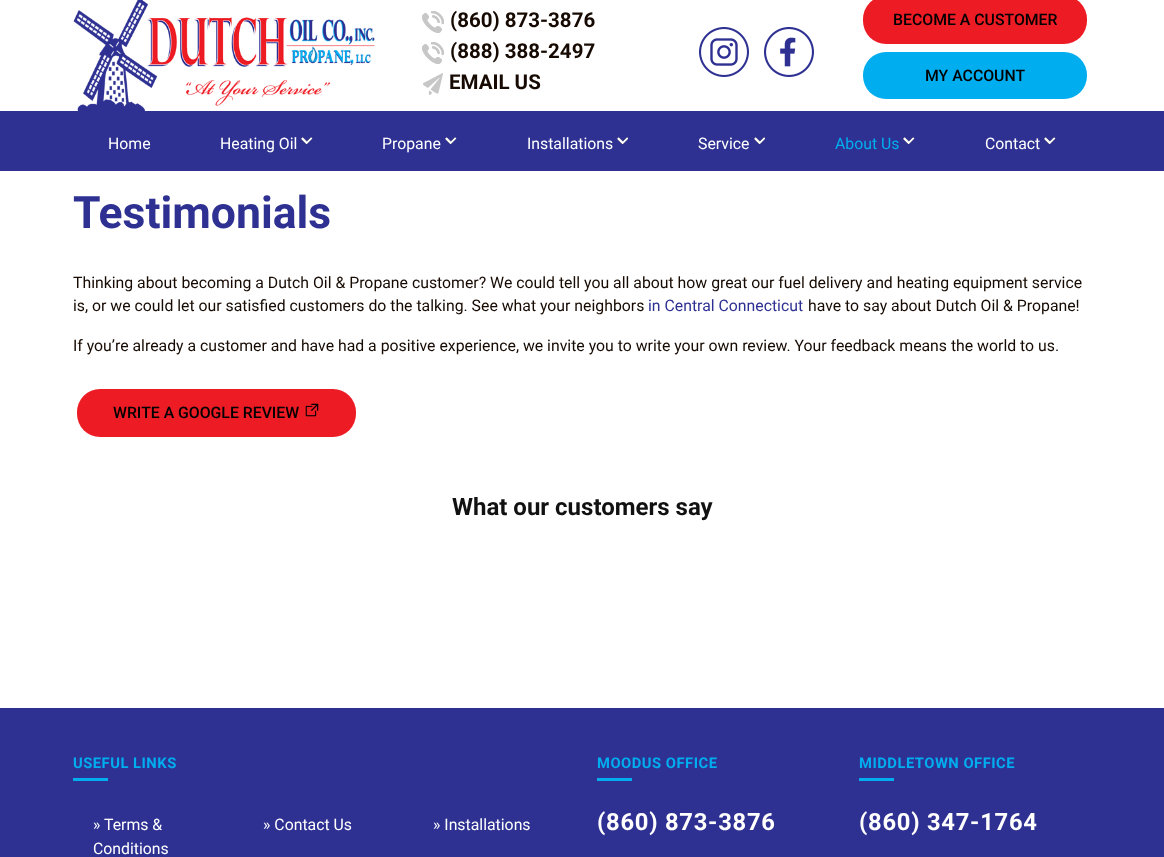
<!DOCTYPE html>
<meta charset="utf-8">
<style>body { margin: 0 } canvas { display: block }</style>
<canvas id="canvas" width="1164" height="857"></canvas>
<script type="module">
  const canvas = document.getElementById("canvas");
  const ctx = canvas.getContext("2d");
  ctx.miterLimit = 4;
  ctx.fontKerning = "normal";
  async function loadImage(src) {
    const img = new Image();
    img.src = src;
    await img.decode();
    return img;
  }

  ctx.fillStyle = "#ffffff";
  ctx.fillRect(0, 0, 1164, 857);
  ctx.drawImage(await loadImage("img1.png"), 73, 0, 302, 111);
  ctx.drawImage(await loadImage("img2.png"), 422, 11, 22, 22);
  ctx.font = "bold 20.5px Roboto";
  ctx.fillStyle = "#160a02";
  ctx.fillText("(860) 873-3876", 450, 27);
  ctx.drawImage(await loadImage("img2.png"), 422, 42, 22, 22);
  ctx.fillText("(888) 388-2497", 450, 58);
  ctx.drawImage(await loadImage("img3.png"), 423, 73, 20, 22);
  ctx.fillText("EMAIL US", 449, 89);
  ctx.drawImage(await loadImage("img4.png"), 699, 27, 50, 50);
  ctx.drawImage(await loadImage("img5.png"), 764, 27, 50, 50);
  ctx.fillStyle = "#ed1c24";
  ctx.beginPath();
  ctx.roundRect(863, -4, 224, 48, 23);
  ctx.fill();
  ctx.font = "500 15.82px Roboto";
  ctx.fillStyle = "#000000";
  ctx.fillText("BECOME A CUSTOMER", 893, 25);
  ctx.fillStyle = "#00aeef";
  ctx.beginPath();
  ctx.roundRect(863, 52, 224, 47, 23);
  ctx.fill();
  ctx.fillStyle = "#000000";
  ctx.fillText("MY ACCOUNT", 925, 81);
  ctx.fillStyle = "#2e3192";
  ctx.fillRect(0, 111, 1164, 60);
  ctx.font = "15.82px Roboto";
  ctx.fillStyle = "#ffffff";
  ctx.fillText("Home", 108, 149);
  ctx.fillText("Heating Oil", 220, 149);
  ctx.drawImage(await loadImage("img6.png"), 301, 137, 12, 7);
  ctx.fillText("Propane", 382, 149);
  ctx.drawImage(await loadImage("img6.png"), 445, 137, 12, 7);
  ctx.fillText("Installations", 527, 149);
  ctx.drawImage(await loadImage("img7.png"), 617, 137, 11, 7);
  ctx.fillText("Service", 698, 149);
  ctx.drawImage(await loadImage("img7.png"), 754, 137, 11, 7);
  ctx.fillStyle = "#00aeef";
  ctx.fillText("About Us", 835, 149);
  ctx.drawImage(await loadImage("img6.png"), 903, 137, 12, 7);
  ctx.fillStyle = "#ffffff";
  ctx.fillText("Contact", 985, 149);
  ctx.drawImage(await loadImage("img6.png"), 1044, 137, 12, 7);
  ctx.font = "bold 44.5px Roboto";
  ctx.fillStyle = "#2e3192";
  ctx.fillText("Testimonials", 73, 228);
  ctx.font = "15.82px Roboto";
  ctx.fillStyle = "#160a02";
  ctx.fillText("Thinking about becoming a Dutch Oil & Propane customer? We could tell you all about how great our fuel delivery and heating equipment service", 73, 288);
  ctx.fillText("is, or we could let our satisfied customers do the talking. See what your neighbors", 73, 311);
  ctx.fillStyle = "#2e3192";
  ctx.fillText("in Central Connecticut", 648, 311);
  ctx.fillStyle = "#160a02";
  ctx.fillText("have to say about Dutch Oil & Propane!", 808, 311);
  ctx.fillText("If you’re already a customer and have had a positive experience, we invite you to write your own review. Your feedback means the world to us.", 73, 351);
  ctx.fillStyle = "#ed1c24";
  ctx.beginPath();
  ctx.roundRect(77, 389, 279, 48, 23);
  ctx.fill();
  ctx.font = "500 15.82px Roboto";
  ctx.fillStyle = "#000000";
  ctx.fillText("WRITE A GOOGLE REVIEW", 113, 418);
  ctx.drawImage(await loadImage("img8.png"), 305, 403, 14, 14);
  ctx.font = "bold 24px Roboto";
  ctx.fillStyle = "#111111";
  ctx.fillText("What our customers say", 452, 515);
  ctx.fillStyle = "#2e3192";
  ctx.fillRect(0, 708, 1164, 149);
  ctx.letterSpacing = "0.5px";
  ctx.font = "bold 14.75px Roboto";
  ctx.fillStyle = "#00aeef";
  ctx.fillText("USEFUL LINKS", 73, 768);
  ctx.fillRect(73, 778, 35, 3);
  ctx.letterSpacing = "0px";
  ctx.font = "15.82px Roboto";
  ctx.fillStyle = "#ffffff";
  ctx.fillText("»", 93, 830);
  ctx.fillText("Terms &", 104, 830);
  ctx.fillText("Conditions", 93, 854);
  ctx.fillText("» Contact Us", 263, 830);
  ctx.fillText("» Installations", 433, 830);
  ctx.letterSpacing = "0.5px";
  ctx.font = "bold 14.75px Roboto";
  ctx.fillStyle = "#00aeef";
  ctx.fillText("MOODUS OFFICE", 597, 768);
  ctx.fillRect(597, 778, 35, 3);
  ctx.letterSpacing = "0.75px";
  ctx.font = "bold 23.75px Roboto";
  ctx.fillStyle = "#ffffff";
  ctx.fillText("(860) 873-3876", 597, 830);
  ctx.letterSpacing = "0.5px";
  ctx.font = "bold 14.75px Roboto";
  ctx.fillStyle = "#00aeef";
  ctx.fillText("MIDDLETOWN OFFICE", 859, 768);
  ctx.fillRect(859, 778, 35, 3);
  ctx.letterSpacing = "0.75px";
  ctx.font = "bold 23.75px Roboto";
  ctx.fillStyle = "#ffffff";
  ctx.fillText("(860) 347-1764", 859, 830);
</script>
